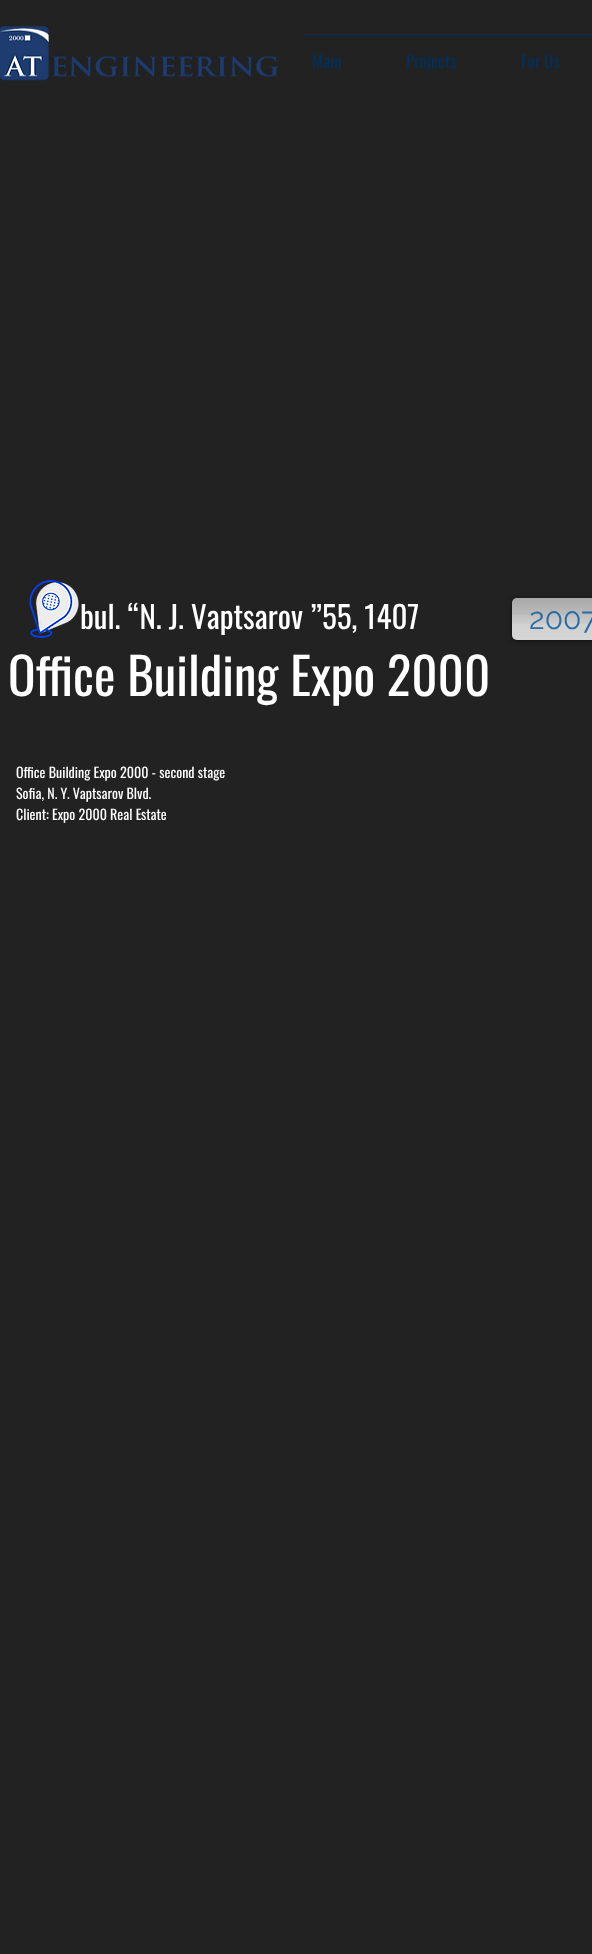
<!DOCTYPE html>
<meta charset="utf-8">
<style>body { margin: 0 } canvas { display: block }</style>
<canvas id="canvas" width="592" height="1954"></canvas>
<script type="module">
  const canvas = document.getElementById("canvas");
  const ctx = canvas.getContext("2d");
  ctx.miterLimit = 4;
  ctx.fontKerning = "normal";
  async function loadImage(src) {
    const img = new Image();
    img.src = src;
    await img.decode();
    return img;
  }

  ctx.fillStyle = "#222222";
  ctx.fillRect(0, 0, 592, 1954);
  ctx.drawImage(await loadImage("img1.png"), 0, 26, 278, 55);
  ctx.fillStyle = "#00305b";
  ctx.fillRect(304, 34, 288, 1);
  ctx.font = "17px Oswald";
  ctx.fillText("Main", 312, 68);
  ctx.fillText("Projects", 406, 68);
  ctx.fillText("For Us", 521, 68);
  ctx.drawImage(await loadImage("img2.png"), 29, 580, 50, 58);
  ctx.font = "31px Oswald";
  ctx.fillStyle = "#ffffff";
  ctx.fillText("bul. “N. J. Vaptsarov ”55, 1407", 80, 629);
  ctx.save();
  ctx.beginPath();
  ctx.moveTo(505, 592);
  ctx.lineTo(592, 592);
  ctx.lineTo(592, 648);
  ctx.lineTo(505, 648);
  ctx.closePath();
  ctx.moveTo(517, 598);
  ctx.lineTo(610, 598);
  ctx.bezierCurveTo(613, 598, 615, 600, 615, 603);
  ctx.lineTo(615, 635);
  ctx.bezierCurveTo(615, 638, 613, 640, 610, 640);
  ctx.lineTo(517, 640);
  ctx.bezierCurveTo(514, 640, 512, 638, 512, 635);
  ctx.lineTo(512, 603);
  ctx.bezierCurveTo(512, 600, 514, 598, 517, 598);
  ctx.closePath();
  ctx.clip("evenodd");
  ctx.fillStyle = "rgba(0, 0, 0, 0.6)";
  ctx.filter = "blur(2px)";
  ctx.beginPath();
  ctx.roundRect(512, 599, 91, 42, 5);
  ctx.fill();
  ctx.filter = "none";
  ctx.restore();
  ctx.fillStyle = "rgba(255, 255, 255, 0.77)";
  ctx.beginPath();
  ctx.roundRect(512, 598, 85, 42, 5);
  ctx.fill();
  ctx.drawImage(await loadImage("img3.png"), 512, 598, 80, 26);
  ctx.drawImage(await loadImage("img4.png"), 512, 615, 80, 25);
  ctx.font = "30px Raleway";
  ctx.fillStyle = "#2b6ca3";
  ctx.fillText("2007", 529, 629);
  ctx.font = "51px Oswald";
  ctx.fillStyle = "#ffffff";
  ctx.fillText("Office Building Expo 2000", 8, 696);
  ctx.font = "14px Oswald";
  ctx.fillText("Office Building Expo 2000 - second stage", 16, 778);
  ctx.fillText("Sofia, N. Y. Vaptsarov Blvd.", 16, 799);
  ctx.fillText("Client: Expo 2000 Real Estate", 16, 820);
</script>
